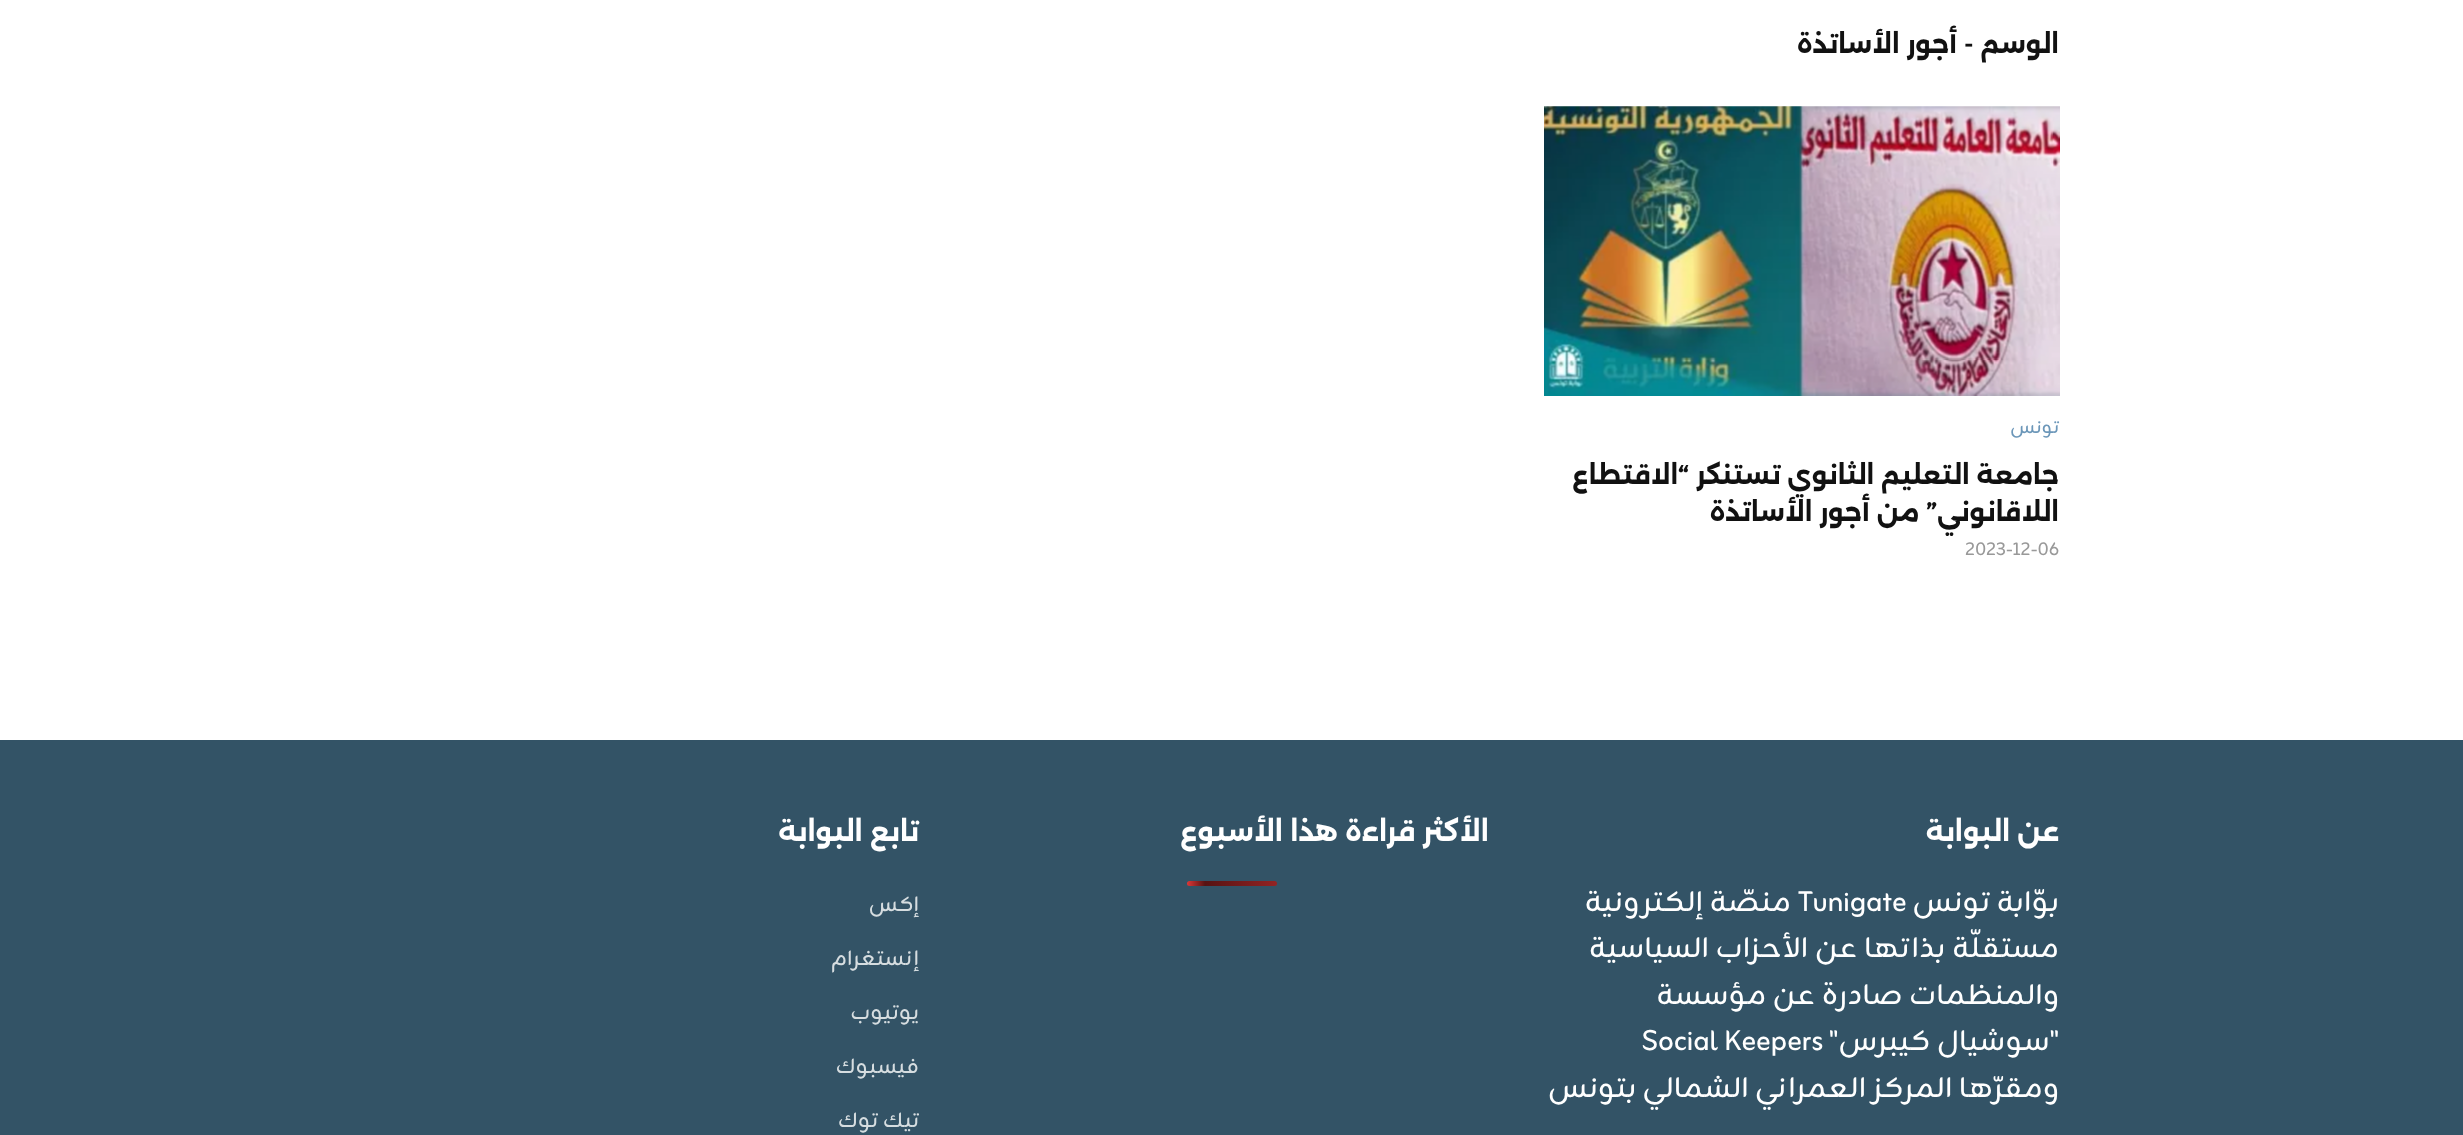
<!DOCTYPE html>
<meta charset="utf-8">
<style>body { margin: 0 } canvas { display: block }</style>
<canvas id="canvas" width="2463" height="1135"></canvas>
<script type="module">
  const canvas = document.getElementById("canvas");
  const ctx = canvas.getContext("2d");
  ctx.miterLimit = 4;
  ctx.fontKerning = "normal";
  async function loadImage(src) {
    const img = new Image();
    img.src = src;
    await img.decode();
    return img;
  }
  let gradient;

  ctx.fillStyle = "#ffffff";
  ctx.fillRect(0, 0, 2463, 1135);
  ctx.direction = "rtl";
  ctx.font = "bold 25.5px Alexandria";
  ctx.fillStyle = "#111111";
  ctx.fillText("الوسم - أجور الأساتذة", 2059, 53);
  ctx.drawImage(await loadImage("img1.png"), 1544, 106, 516, 290);
  ctx.font = "18px Zain";
  ctx.fillStyle = "#6c97b9";
  ctx.fillText("تونس", 2059, 433);
  ctx.font = "bold 25.5px Alexandria";
  ctx.fillStyle = "#111111";
  ctx.fillText("جامعة التعليم الثانوي تستنكر “الاقتطاع", 2059, 484);
  ctx.fillText("اللاقانوني” من أجور الأساتذة", 2059, 521);
  ctx.direction = "ltr";
  ctx.font = "18px Zain";
  ctx.fillStyle = "#999999";
  ctx.fillText("2023-12-06", 1965, 555);
  ctx.fillStyle = "#335366";
  ctx.fillRect(0, 740, 2463, 395);
  ctx.direction = "rtl";
  ctx.font = "bold 27px Alexandria";
  ctx.fillStyle = "#ffffff";
  ctx.fillText("عن البوابة", 2059, 841);
  ctx.font = "28.5px Zain";
  ctx.fillText("بوّابة تونس", 2059, 911);
  ctx.direction = "ltr";
  ctx.fillText("Tunigate", 1798, 911);
  ctx.direction = "rtl";
  ctx.fillText("منصّة إلكترونية", 1791, 911);
  ctx.fillText("مستقلّة بذاتها عن الأحزاب السياسية", 2059, 957);
  ctx.fillText("والمنظمات صادرة عن مؤسسة", 2059, 1004);
  ctx.fillText("\"سوشيال كيبرس\"", 2059, 1050);
  ctx.direction = "ltr";
  ctx.fillText("Social Keepers", 1642, 1050);
  ctx.direction = "rtl";
  ctx.fillText("ومقرّها المركز العمراني الشمالي بتونس", 2059, 1097);
  ctx.font = "bold 27px Alexandria";
  ctx.fillText("الأكثر قراءة هذا الأسبوع", 1489, 841);
  gradient = ctx.createLinearGradient(1187, 883, 1367, 883);
  gradient.addColorStop(0, "#dd3737");
  gradient.addColorStop(0.1, "#571313");
  gradient.addColorStop(1, "#dd3737");
  ctx.fillStyle = gradient;
  ctx.beginPath();
  ctx.roundRect(1187, 881, 90, 5, 2.5);
  ctx.fill();
  ctx.fillStyle = "#ffffff";
  ctx.fillText("تابع البوابة", 919, 841);
  ctx.font = "21px Zain";
  ctx.fillStyle = "#d6dde0";
  ctx.fillText("إكس", 919, 911);
  ctx.fillText("إنستغرام", 919, 965);
  ctx.fillText("يوتيوب", 919, 1019);
  ctx.fillText("فيسبوك", 919, 1073);
  ctx.fillText("تيك توك", 919, 1127);
</script>
